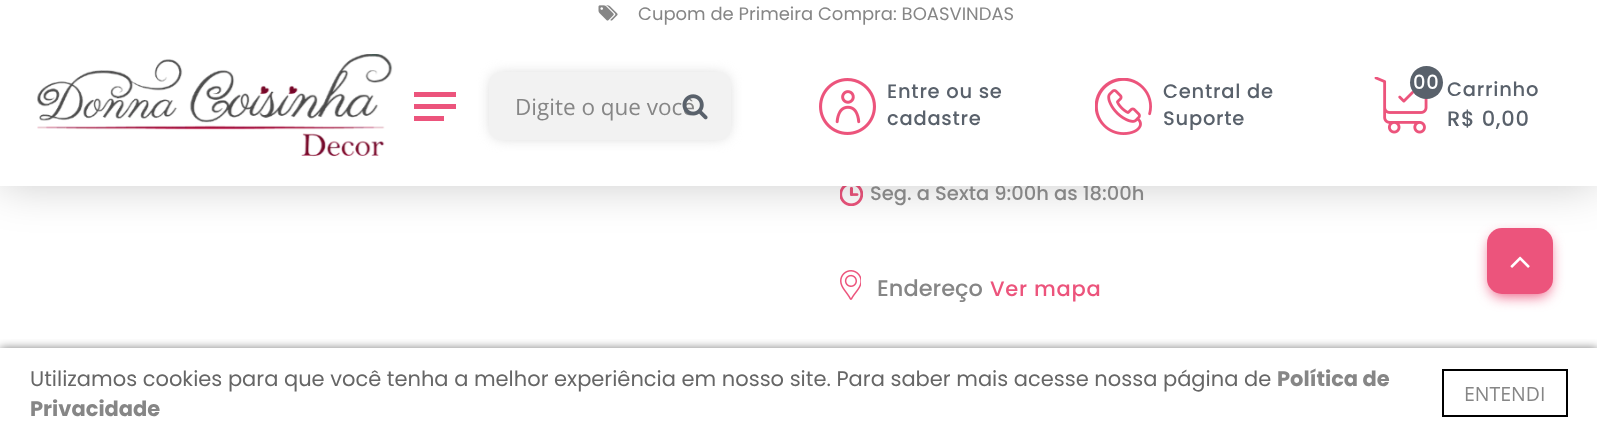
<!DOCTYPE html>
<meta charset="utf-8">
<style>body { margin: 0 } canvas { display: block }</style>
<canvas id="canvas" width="1597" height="437"></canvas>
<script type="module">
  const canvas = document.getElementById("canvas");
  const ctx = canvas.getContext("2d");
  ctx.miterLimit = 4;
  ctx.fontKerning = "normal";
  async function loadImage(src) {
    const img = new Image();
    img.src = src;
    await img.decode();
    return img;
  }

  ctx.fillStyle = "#ffffff";
  ctx.fillRect(0, 0, 1597, 437);
  ctx.drawImage(await loadImage("img7.png"), 840, 186, 23, 20);
  ctx.fillStyle = "rgba(0, 0, 0, 0.2)";
  ctx.filter = "blur(22.5px)";
  ctx.beginPath();
  ctx.rect(0, 0, 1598, 186);
  ctx.fill();
  ctx.filter = "none";
  ctx.font = "500 19.5px Poppins";
  ctx.fillStyle = "#868686";
  ctx.fillText("Seg. a Sexta 9:00h as 18:00h", 870, 200);
  ctx.fillStyle = "#ffffff";
  ctx.fillRect(0, 0, 1597, 186);
  ctx.drawImage(await loadImage("img1.png"), 598, 5, 20, 16);
  ctx.font = "18px Poppins";
  ctx.fillStyle = "#868686";
  ctx.fillText("Cupom de Primeira Compra: BOASVINDAS", 638, 20);
  ctx.drawImage(await loadImage("img2.png"), 37, 54, 356, 103);
  ctx.fillStyle = "#ec547c";
  ctx.fillRect(414, 92, 42, 5);
  ctx.fillRect(414, 104, 42, 5);
  ctx.fillRect(414, 116, 30, 5);
  ctx.fillStyle = "#cccccc";
  ctx.filter = "blur(7px)";
  ctx.beginPath();
  ctx.roundRect(492, 75, 236, 62, 9);
  ctx.fill();
  ctx.filter = "none";
  ctx.fillStyle = "#f2f2f2";
  ctx.beginPath();
  ctx.roundRect(489, 72, 242, 68, 12);
  ctx.fill();
  ctx.font = "22.5px Open Sans";
  ctx.fillStyle = "#868686";
  ctx.fillText("Digite o que você", 515, 115);
  ctx.drawImage(await loadImage("img3.png"), 682, 94, 26, 26);
  ctx.drawImage(await loadImage("img4.png"), 819, 78, 57, 57);
  ctx.letterSpacing = "0.75px";
  ctx.font = "500 19.5px Poppins";
  ctx.fillStyle = "#59616b";
  ctx.fillText("Entre ou se", 887, 98);
  ctx.fillText("cadastre", 887, 125);
  ctx.drawImage(await loadImage("img5.png"), 1095, 78, 57, 57);
  ctx.fillText("Central de", 1163, 98);
  ctx.fillText("Suporte", 1163, 125);
  ctx.drawImage(await loadImage("img6.png"), 1374, 77, 54, 57);
  ctx.beginPath();
  ctx.arc(1426.5, 82.5, 16.5, 0, Math.PI * 2);
  ctx.fill();
  ctx.fillStyle = "#ffffff";
  ctx.fillText("00", 1413, 89);
  ctx.fillStyle = "#59616b";
  ctx.fillText("Carrinho", 1447, 96);
  ctx.font = "500 21px Poppins";
  ctx.fillText("R$ 0,00", 1447, 126);
  ctx.drawImage(await loadImage("img8.png"), 840, 270, 21, 30);
  ctx.letterSpacing = "0px";
  ctx.font = "500 22.5px Poppins";
  ctx.fillStyle = "#868686";
  ctx.fillText("Endereço", 877, 296);
  ctx.letterSpacing = "0.75px";
  ctx.font = "500 21px Poppins";
  ctx.fillStyle = "#ec547c";
  ctx.fillText("Ver mapa", 990, 296);
  ctx.filter = "blur(7px)";
  ctx.beginPath();
  ctx.roundRect(1490, 236, 60, 60, 12);
  ctx.fill();
  ctx.filter = "none";
  ctx.beginPath();
  ctx.roundRect(1487, 228, 66, 66, 15);
  ctx.fill();
  ctx.drawImage(await loadImage("img9.png"), 1510, 256, 20, 12);
  ctx.save();
  ctx.beginPath();
  ctx.rect(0, 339, 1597, 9);
  ctx.clip();
  ctx.fillStyle = "rgba(0, 0, 0, 0.5)";
  ctx.filter = "blur(5px)";
  ctx.beginPath();
  ctx.rect(0, 348, 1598, 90);
  ctx.fill();
  ctx.filter = "none";
  ctx.restore();
  ctx.letterSpacing = "0px";
  ctx.font = "21px Poppins";
  ctx.fillStyle = "#666666";
  ctx.fillText("Utilizamos cookies para que você tenha a melhor experiência em nosso site. Para saber mais acesse nossa página de", 30, 386);
  ctx.font = "bold 21px Poppins";
  ctx.fillStyle = "#868686";
  ctx.fillText("Política de", 1277, 386);
  ctx.fillText("Privacidade", 30, 416);
  ctx.strokeStyle = "#000000";
  ctx.lineWidth = 2;
  ctx.strokeRect(1443, 370, 124, 46);
  ctx.font = "19.5px Open Sans";
  ctx.fillText("ENTENDI", 1464, 401);
</script>
